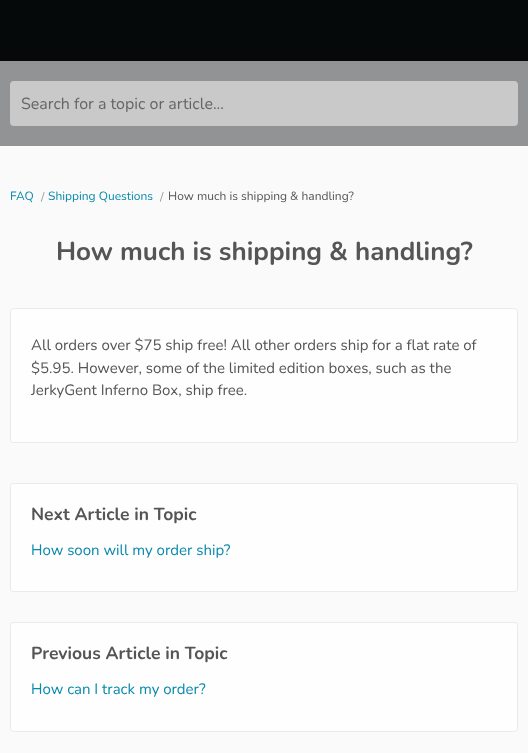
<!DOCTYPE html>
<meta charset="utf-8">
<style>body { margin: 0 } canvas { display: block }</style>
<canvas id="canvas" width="528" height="753"></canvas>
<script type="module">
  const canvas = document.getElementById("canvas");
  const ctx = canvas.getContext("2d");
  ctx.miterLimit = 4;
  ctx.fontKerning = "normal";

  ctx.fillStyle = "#fafafa";
  ctx.fillRect(0, 0, 528, 753);
  ctx.fillStyle = "#05090a";
  ctx.fillRect(0, 0, 528, 61);
  ctx.fillStyle = "#929394";
  ctx.fillRect(0, 61, 528, 85);
  ctx.fillStyle = "#c9c9ca";
  ctx.beginPath();
  ctx.roundRect(10, 81, 508, 45, 4);
  ctx.fill();
  ctx.font = "16px Nunito";
  ctx.fillStyle = "#656565";
  ctx.fillText("Search for a topic or article...", 21, 109);
  ctx.font = "12px Nunito";
  ctx.fillStyle = "#088aab";
  ctx.fillText("FAQ", 10, 200);
  ctx.fillStyle = "#999999";
  ctx.fillText("/", 41, 201);
  ctx.fillStyle = "#088aab";
  ctx.fillText("Shipping Questions", 48, 200);
  ctx.fillStyle = "#999999";
  ctx.fillText("/", 160, 201);
  ctx.fillStyle = "#555555";
  ctx.fillText("How much is shipping & handling?", 168, 200);
  ctx.font = "bold 26px Nunito";
  ctx.fillText("How much is shipping & handling?", 56, 260);
  ctx.fillStyle = "#fefefe";
  ctx.beginPath();
  ctx.roundRect(10, 308, 508, 135, 3);
  ctx.fill();
  ctx.beginPath();
  ctx.roundRect(10.5, 308.5, 507, 134, 2.5);
  ctx.strokeStyle = "rgba(0, 0, 0, 0.08)";
  ctx.stroke();
  ctx.font = "15px Nunito";
  ctx.fillStyle = "#555555";
  ctx.fillText("All orders over $75 ship free! All other orders ship for a flat rate of", 31, 350);
  ctx.fillText("$5.95. However, some of the limited edition boxes, such as the", 31, 373);
  ctx.fillText("JerkyGent Inferno Box, ship free.", 31, 395);
  ctx.fillStyle = "#fefefe";
  ctx.beginPath();
  ctx.roundRect(10, 483, 508, 109, 3);
  ctx.fill();
  ctx.beginPath();
  ctx.roundRect(10.5, 483.5, 507, 108, 2.5);
  ctx.stroke();
  ctx.font = "bold 17.5px Nunito";
  ctx.fillStyle = "#555555";
  ctx.fillText("Next Article in Topic", 31, 520);
  ctx.font = "15px Nunito";
  ctx.fillStyle = "#088aab";
  ctx.fillText("How soon will my order ship?", 31, 555);
  ctx.fillStyle = "#fefefe";
  ctx.beginPath();
  ctx.roundRect(10, 622, 508, 110, 3);
  ctx.fill();
  ctx.beginPath();
  ctx.roundRect(10.5, 622.5, 507, 109, 2.5);
  ctx.stroke();
  ctx.font = "bold 17.5px Nunito";
  ctx.fillStyle = "#555555";
  ctx.fillText("Previous Article in Topic", 31, 659);
  ctx.font = "15px Nunito";
  ctx.fillStyle = "#088aab";
  ctx.fillText("How can I track my order?", 31, 694);
</script>
